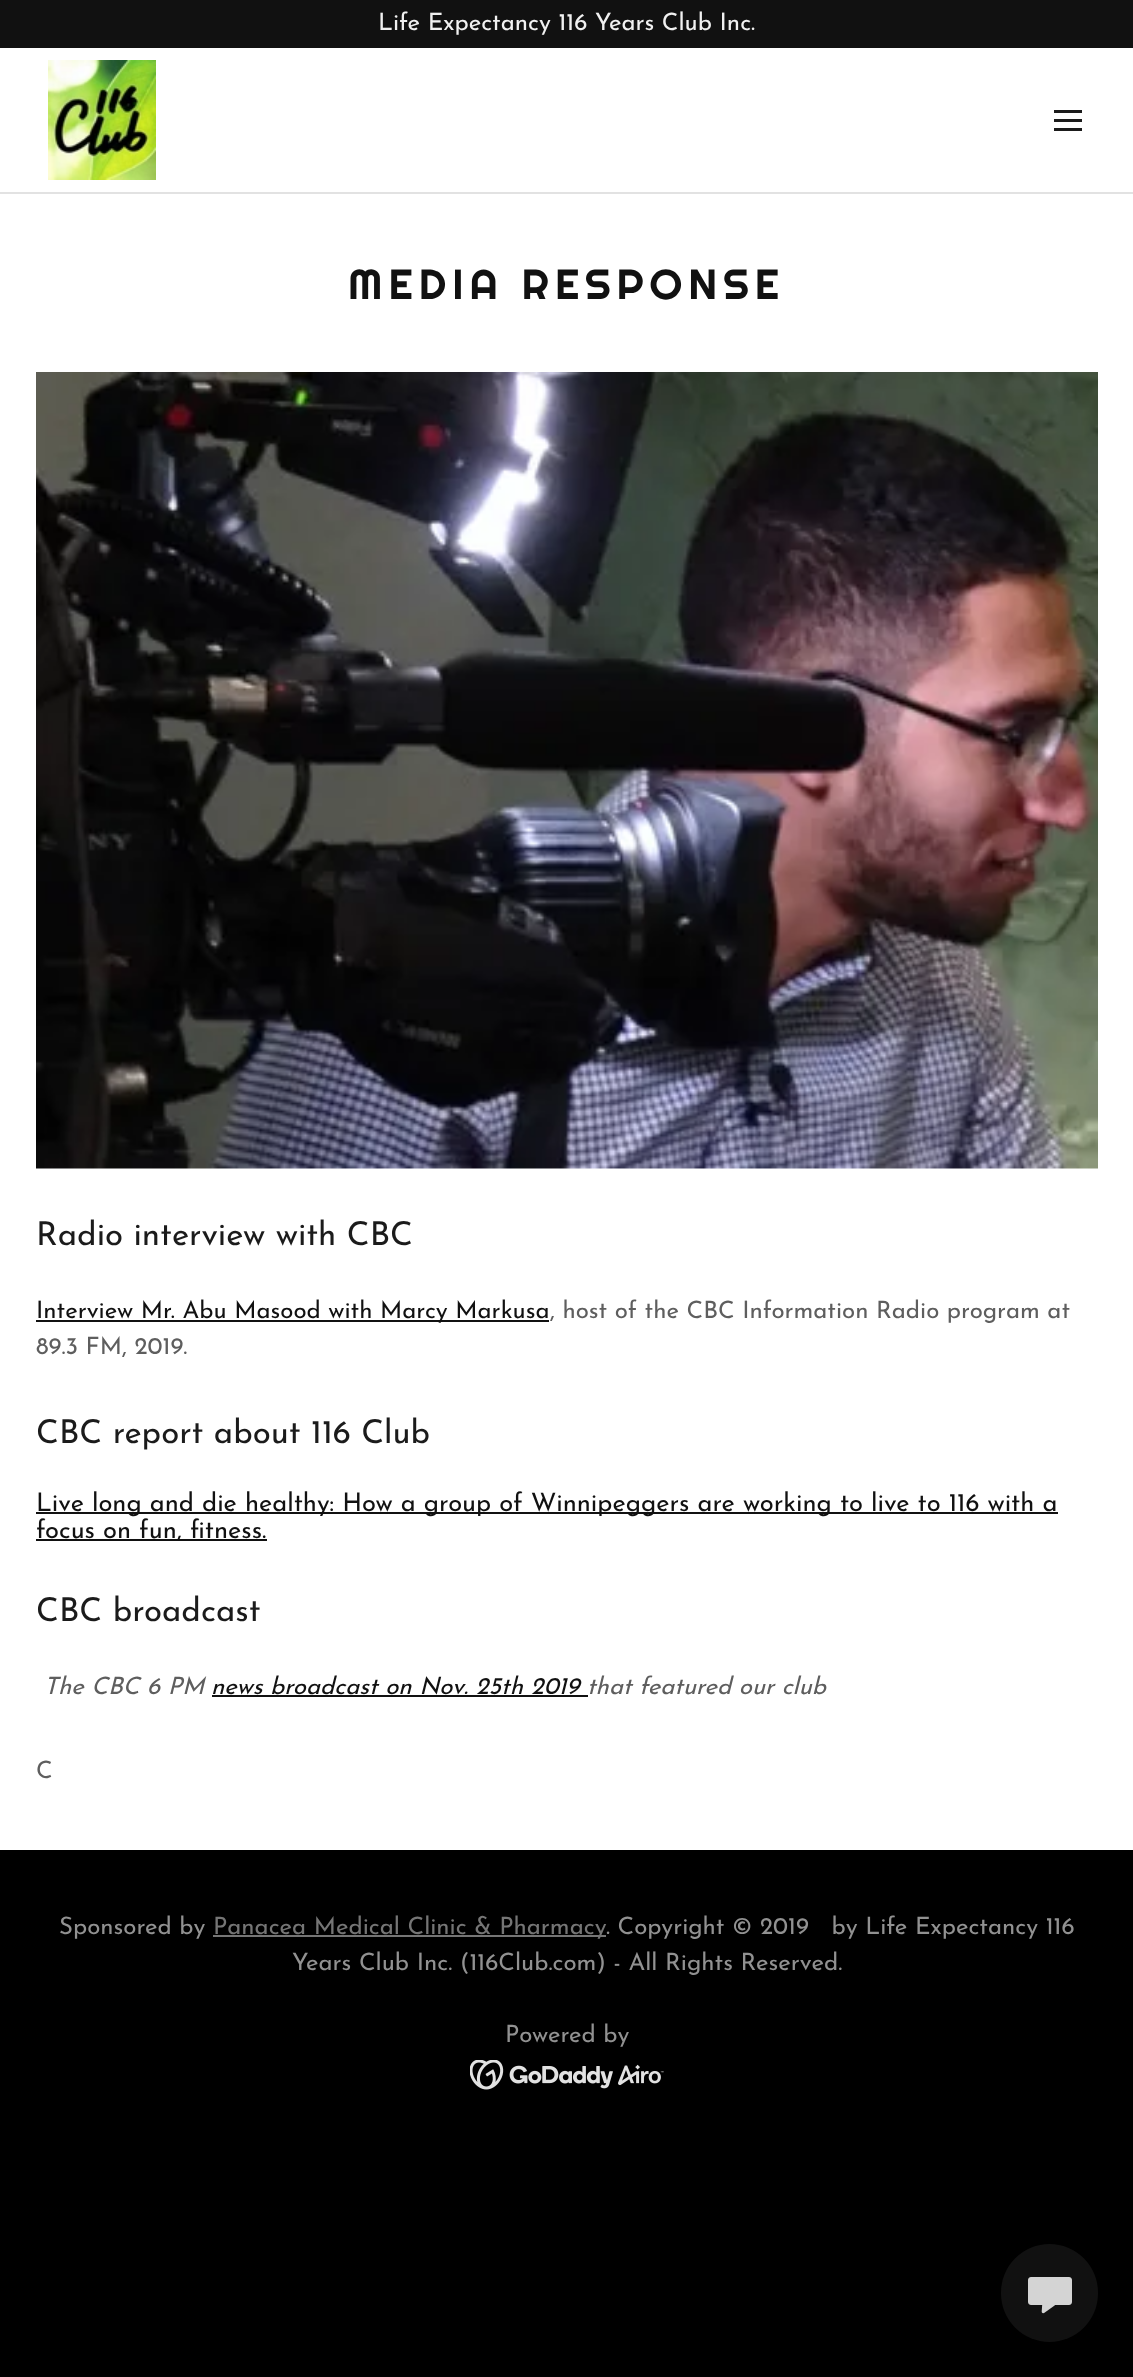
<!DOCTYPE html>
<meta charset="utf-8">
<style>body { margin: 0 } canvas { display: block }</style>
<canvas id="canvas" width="1133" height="2377"></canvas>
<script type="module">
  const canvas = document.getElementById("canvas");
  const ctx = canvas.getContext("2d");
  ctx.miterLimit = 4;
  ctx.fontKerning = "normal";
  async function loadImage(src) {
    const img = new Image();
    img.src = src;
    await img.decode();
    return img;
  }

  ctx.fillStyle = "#000000";
  ctx.fillRect(0, 0, 1133, 2377);
  ctx.fillStyle = "#ffffff";
  ctx.fillRect(0, 48, 1133, 144);
  ctx.fillStyle = "#111111";
  ctx.fillRect(0, 0, 1133, 48);
  ctx.font = "24px Josefin Sans";
  ctx.fillStyle = "#f1f1f1";
  ctx.fillText("Life Expectancy 116 Years Club Inc.", 378, 30);
  ctx.drawImage(await loadImage("img1.png"), 48, 60, 108, 120);
  ctx.fillStyle = "#1b1b1b";
  ctx.fillRect(1054, 110, 28, 3);
  ctx.fillRect(1054, 119, 28, 3);
  ctx.fillRect(1054, 128, 28, 3);
  ctx.fillStyle = "#e2e2e2";
  ctx.fillRect(0, 192, 1133, 2);
  ctx.fillStyle = "#ffffff";
  ctx.fillRect(0, 194, 1133, 1656);
  ctx.letterSpacing = "6px";
  ctx.font = "42px Righteous";
  ctx.fillStyle = "#111111";
  ctx.fillText("MEDIA RESPONSE", 348, 299);
  ctx.drawImage(await loadImage("img2.png"), 36, 372, 1062, 797);
  ctx.letterSpacing = "0px";
  ctx.font = "33px Josefin Sans";
  ctx.fillStyle = "#1b1b1b";
  ctx.fillText("Radio interview with CBC", 36, 1245);
  ctx.fillStyle = "#111111";
  ctx.fillRect(36, 1320, 513, 2);
  ctx.font = "24px Josefin Sans";
  ctx.fillText("Interview Mr. Abu Masood with Marcy Markusa", 36, 1318);
  ctx.fillStyle = "#5e5e5e";
  ctx.fillText(", host of the CBC Information Radio program at", 550, 1318);
  ctx.fillText("89.3 FM, 2019.", 36, 1354);
  ctx.font = "33px Josefin Sans";
  ctx.fillStyle = "#1b1b1b";
  ctx.fillText("CBC report about 116 Club", 36, 1443);
  ctx.fillStyle = "#111111";
  ctx.fillRect(36, 1512, 1022, 2);
  ctx.font = "25.5px Josefin Sans";
  ctx.fillText("Live long and die healthy: How a group of Winnipeggers are working to live to 116 with a", 36, 1511);
  ctx.fillRect(36, 1539, 231, 2);
  ctx.fillText("focus on fun, fitness.", 36, 1538);
  ctx.font = "33px Josefin Sans";
  ctx.fillStyle = "#1b1b1b";
  ctx.fillText("CBC broadcast", 36, 1621);
  ctx.font = "italic 24px Josefin Sans";
  ctx.fillStyle = "#5e5e5e";
  ctx.fillText("The CBC 6 PM", 44, 1694);
  ctx.fillStyle = "#111111";
  ctx.fillText("news broadcast on Nov. 25th 2019", 211, 1694);
  ctx.fillRect(212, 1695, 376, 2);
  ctx.fillStyle = "#5e5e5e";
  ctx.fillText("that featured our club", 587, 1694);
  ctx.font = "24px Josefin Sans";
  ctx.fillText("C", 36, 1778);
  ctx.fillStyle = "#919191";
  ctx.fillText("Sponsored by", 59, 1934);
  ctx.fillStyle = "#757575";
  ctx.fillRect(213, 1935, 393, 2);
  ctx.fillText("Panacea Medical Clinic & Pharmacy", 213, 1934);
  ctx.fillStyle = "#919191";
  ctx.fillText(". Copyright © 2019   by Life Expectancy 116", 606, 1934);
  ctx.fillText("Years Club Inc. (116Club.com) - All Rights Reserved.", 292, 1970);
  ctx.fillText("Powered by", 505, 2042);
  ctx.drawImage(await loadImage("img3.png"), 470, 2060, 194, 30);
  ctx.fillStyle = "#111111";
  ctx.beginPath();
  ctx.roundRect(1001, 2244, 97, 98, 48.5);
  ctx.fill();
  ctx.drawImage(await loadImage("img4.png"), 1028, 2277, 44, 37);
</script>
